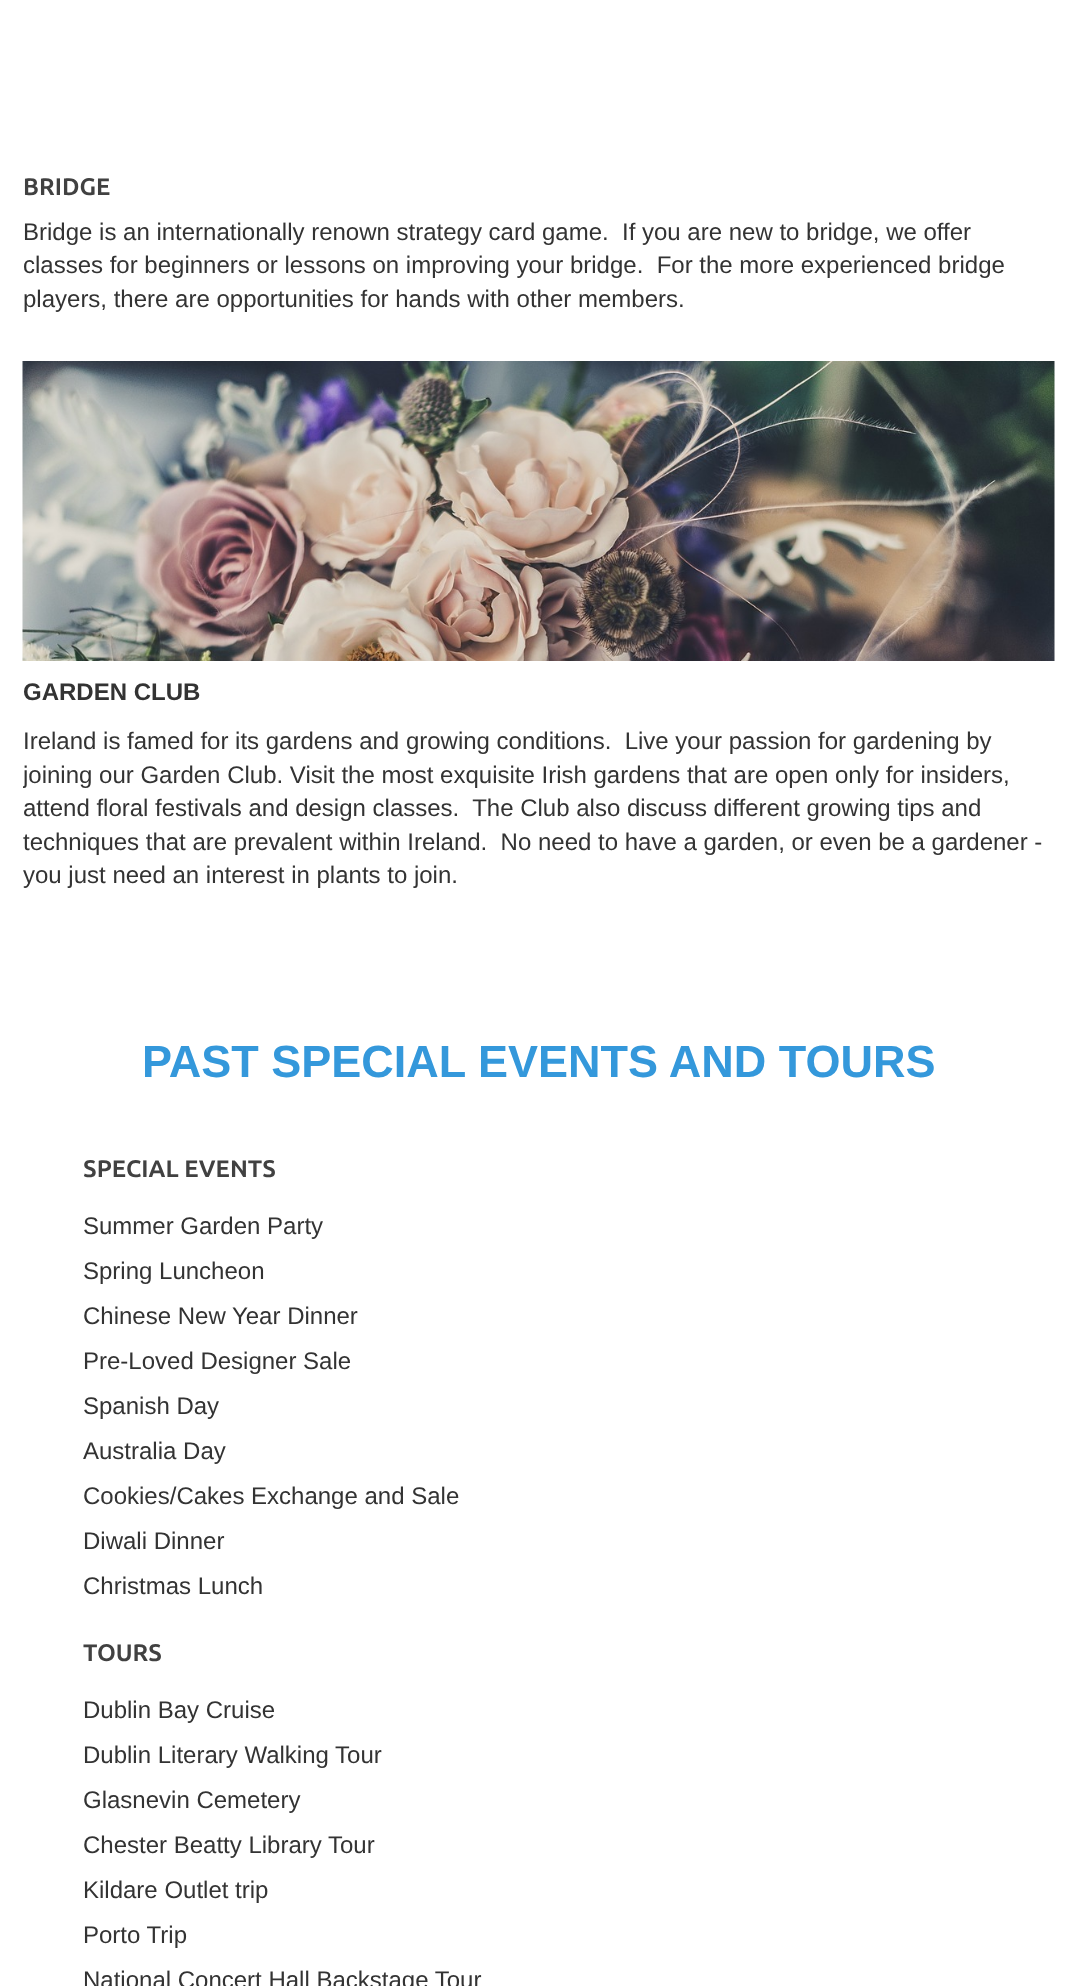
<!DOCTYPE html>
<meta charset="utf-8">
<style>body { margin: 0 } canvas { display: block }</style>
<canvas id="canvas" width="1076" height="1986"></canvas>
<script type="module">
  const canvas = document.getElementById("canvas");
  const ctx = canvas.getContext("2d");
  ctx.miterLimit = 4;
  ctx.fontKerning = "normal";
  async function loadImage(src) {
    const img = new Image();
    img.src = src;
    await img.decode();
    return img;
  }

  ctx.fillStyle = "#ffffff";
  ctx.fillRect(0, 0, 1076, 1986);
  ctx.font = "bold 24px Ubuntu";
  ctx.fillStyle = "#414141";
  ctx.fillText("BRIDGE", 23, 195);
  ctx.font = "24px Liberation Sans";
  ctx.fillStyle = "#333333";
  ctx.fillText("Bridge is an internationally renown strategy card game.  If you are new to bridge, we offer", 23, 240);
  ctx.fillText("classes for beginners or lessons on improving your bridge.  For the more experienced bridge", 23, 273);
  ctx.fillText("players, there are opportunities for hands with other members.", 23, 307);
  ctx.drawImage(await loadImage("img1.png"), 22, 361, 1033, 300);
  ctx.font = "bold 24px Liberation Sans";
  ctx.fillText("GARDEN CLUB", 23, 700);
  ctx.font = "24px Liberation Sans";
  ctx.fillText("Ireland is famed for its gardens and growing conditions.  Live your passion for gardening by", 23, 749);
  ctx.save();
  ctx.beginPath();
  ctx.rect(23, 725, 1032, 168);
  ctx.clip();
  ctx.fillText("joining our Garden Club. Visit the most exquisite Irish gardens that are open only for insiders,", 23, 783);
  ctx.restore();
  ctx.fillText("attend floral festivals and design classes.  The Club also discuss different growing tips and", 23, 816);
  ctx.fillText("techniques that are prevalent within Ireland.  No need to have a garden, or even be a gardener -", 23, 850);
  ctx.fillText("you just need an interest in plants to join.", 23, 883);
  ctx.font = "bold 45px Liberation Sans";
  ctx.fillStyle = "#3498db";
  ctx.fillText("PAST SPECIAL EVENTS AND TOURS", 142, 1077);
  ctx.font = "bold 24px Ubuntu";
  ctx.fillStyle = "#414141";
  ctx.fillText("SPECIAL EVENTS", 83, 1177);
  ctx.font = "24px Liberation Sans";
  ctx.fillStyle = "#333333";
  ctx.fillText("Summer Garden Party", 83, 1234);
  ctx.fillText("Spring Luncheon", 83, 1279);
  ctx.fillText("Chinese New Year Dinner", 83, 1324);
  ctx.fillText("Pre-Loved Designer Sale", 83, 1369);
  ctx.fillText("Spanish Day", 83, 1414);
  ctx.fillText("Australia Day", 83, 1459);
  ctx.fillText("Cookies/Cakes Exchange and Sale", 83, 1504);
  ctx.fillText("Diwali Dinner", 83, 1549);
  ctx.fillText("Christmas Lunch", 83, 1594);
  ctx.font = "bold 24px Ubuntu";
  ctx.fillStyle = "#414141";
  ctx.fillText("TOURS", 83, 1661);
  ctx.font = "24px Liberation Sans";
  ctx.fillStyle = "#333333";
  ctx.fillText("Dublin Bay Cruise", 83, 1718);
  ctx.fillText("Dublin Literary Walking Tour", 83, 1763);
  ctx.fillText("Glasnevin Cemetery", 83, 1808);
  ctx.fillText("Chester Beatty Library Tour", 83, 1853);
  ctx.fillText("Kildare Outlet trip", 83, 1898);
  ctx.fillText("Porto Trip", 83, 1943);
  ctx.fillText("National Concert Hall Backstage Tour", 83, 1988);
</script>
